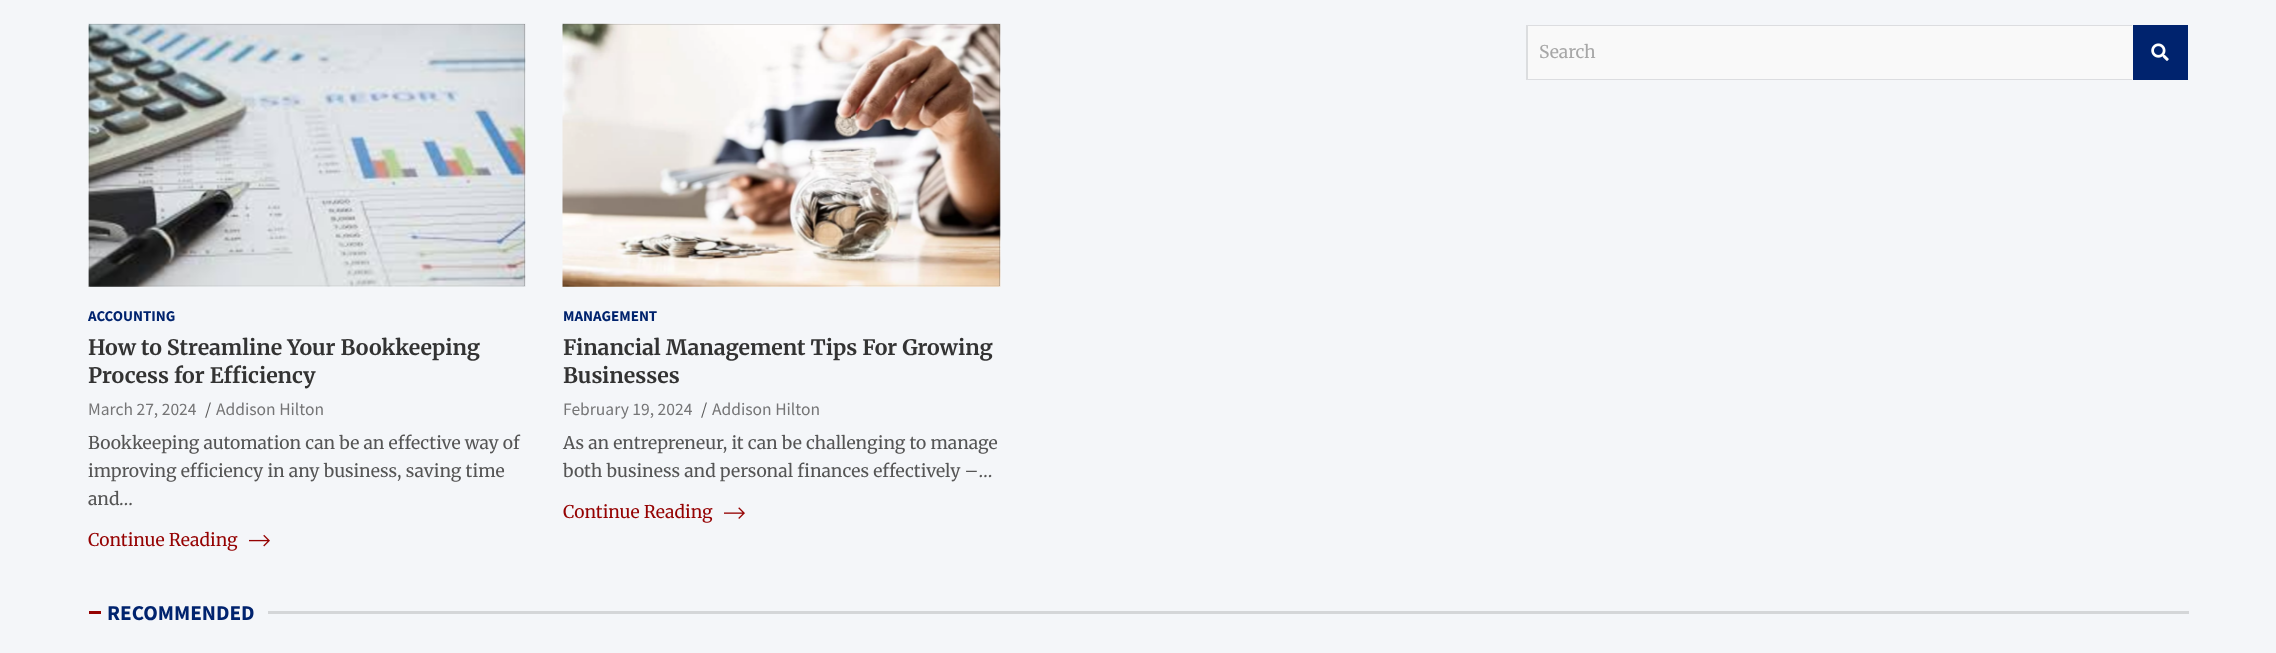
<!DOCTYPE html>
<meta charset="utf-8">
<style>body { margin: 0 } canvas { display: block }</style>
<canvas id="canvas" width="2276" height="653"></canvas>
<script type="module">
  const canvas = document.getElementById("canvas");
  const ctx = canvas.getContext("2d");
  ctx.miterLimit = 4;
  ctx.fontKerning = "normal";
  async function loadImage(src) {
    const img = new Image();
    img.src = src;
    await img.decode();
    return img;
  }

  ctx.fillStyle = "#f4f6f9";
  ctx.fillRect(0, 0, 2276, 653);
  ctx.fillStyle = "#f9f9f9";
  ctx.fillRect(1528, 26, 605, 53);
  ctx.fillStyle = "#dcdde0";
  ctx.beginPath();
  ctx.moveTo(1526, 25);
  ctx.lineTo(2132, 25);
  ctx.lineTo(2132, 26);
  ctx.lineTo(1528, 26);
  ctx.closePath();
  ctx.fill();
  ctx.beginPath();
  ctx.moveTo(2132, 80);
  ctx.lineTo(1526, 80);
  ctx.lineTo(1528, 79);
  ctx.lineTo(2132, 79);
  ctx.closePath();
  ctx.fill();
  ctx.fillStyle = "rgba(0, 0, 0, 0.1)";
  ctx.beginPath();
  ctx.moveTo(1526, 80);
  ctx.lineTo(1526, 25);
  ctx.lineTo(1528, 26);
  ctx.lineTo(1528, 79);
  ctx.closePath();
  ctx.fill();
  ctx.font = "17.5px Merriweather";
  ctx.fillStyle = "#a7a7a7";
  ctx.fillText("Search", 1539, 58);
  ctx.fillStyle = "#00236e";
  ctx.fillRect(2133, 25, 55, 55);
  ctx.drawImage(await loadImage("img1.png"), 2151, 43, 18, 18);
  ctx.fillStyle = "#555555";
  ctx.fillRect(89, 24, 436, 262);
  ctx.drawImage(await loadImage("img2.png"), 88, 23, 438, 264);
  ctx.font = "bold 15px Source Sans Pro";
  ctx.fillStyle = "#00236e";
  ctx.fillText("ACCOUNTING", 88, 321);
  ctx.font = "bold 21.25px Merriweather";
  ctx.fillStyle = "#333333";
  ctx.fillText("How to Streamline Your Bookkeeping", 88, 355);
  ctx.fillText("Process for Efficiency", 88, 383);
  ctx.font = "17.5px Source Sans Pro";
  ctx.fillStyle = "#757576";
  ctx.fillText("March 27, 2024", 88, 415);
  ctx.fillStyle = "#555555";
  ctx.fillText("/", 205, 415);
  ctx.fillStyle = "#757576";
  ctx.fillText("Addison Hilton", 216, 415);
  ctx.font = "17.5px Merriweather";
  ctx.fillStyle = "#555555";
  ctx.fillText("Bookkeeping automation can be an effective way of", 88, 449);
  ctx.fillText("improving efficiency in any business, saving time", 88, 477);
  ctx.fillText("and…", 88, 505);
  ctx.fillStyle = "#950202";
  ctx.fillText("Continue Reading", 88, 546);
  ctx.drawImage(await loadImage("img3.png"), 249, 534, 21, 13);
  ctx.fillStyle = "#555555";
  ctx.fillRect(563, 24, 437, 262);
  ctx.drawImage(await loadImage("img4.png"), 562, 23, 439, 264);
  ctx.font = "bold 15px Source Sans Pro";
  ctx.fillStyle = "#00236e";
  ctx.fillText("MANAGEMENT", 563, 321);
  ctx.font = "bold 21.25px Merriweather";
  ctx.fillStyle = "#333333";
  ctx.fillText("Financial Management Tips For Growing", 563, 355);
  ctx.fillText("Businesses", 563, 383);
  ctx.font = "17.5px Source Sans Pro";
  ctx.fillStyle = "#757576";
  ctx.fillText("February 19, 2024", 563, 415);
  ctx.fillStyle = "#555555";
  ctx.fillText("/", 701, 415);
  ctx.fillStyle = "#757576";
  ctx.fillText("Addison Hilton", 712, 415);
  ctx.font = "17.5px Merriweather";
  ctx.fillStyle = "#555555";
  ctx.fillText("As an entrepreneur, it can be challenging to manage", 563, 449);
  ctx.fillText("both business and personal finances effectively –…", 563, 477);
  ctx.fillStyle = "#950202";
  ctx.fillText("Continue Reading", 563, 518);
  ctx.drawImage(await loadImage("img5.png"), 724, 507, 21, 12);
  ctx.fillRect(89, 611, 12, 3);
  ctx.font = "bold 21.25px Source Sans Pro";
  ctx.fillStyle = "#00236e";
  ctx.fillText("RECOMMENDED", 107, 620);
  ctx.fillStyle = "#d4d6d8";
  ctx.fillRect(268, 611, 1921, 3);
</script>
